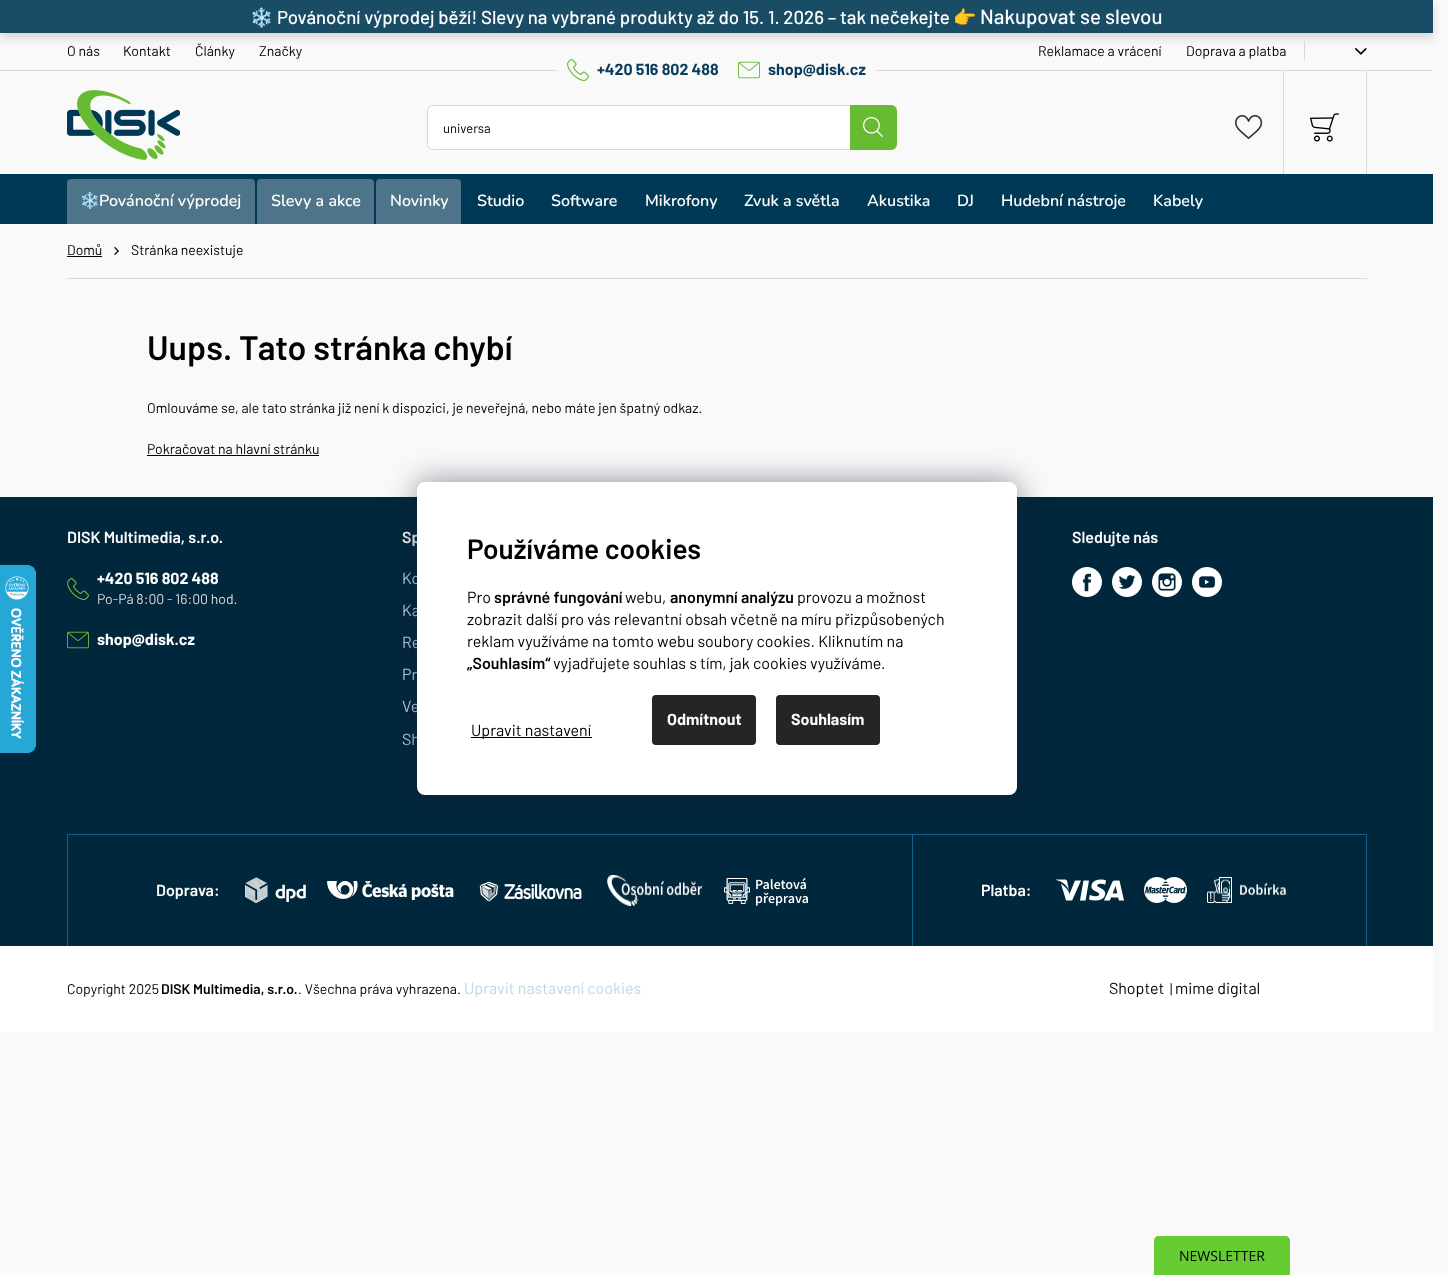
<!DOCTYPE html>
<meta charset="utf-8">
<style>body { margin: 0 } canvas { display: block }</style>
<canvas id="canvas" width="1448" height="1275"></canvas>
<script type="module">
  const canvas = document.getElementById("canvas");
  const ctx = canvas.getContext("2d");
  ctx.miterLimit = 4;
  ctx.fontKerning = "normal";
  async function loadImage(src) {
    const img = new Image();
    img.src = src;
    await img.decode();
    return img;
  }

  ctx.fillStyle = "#f9f9f9";
  ctx.fillRect(0, 0, 1448, 1275);
  ctx.fillStyle = "rgba(25, 25, 25, 0.16)";
  ctx.filter = "blur(5px)";
  ctx.beginPath();
  ctx.rect(0, 5, 1433, 33);
  ctx.fill();
  ctx.filter = "none";
  ctx.fillStyle = "#194c65";
  ctx.fillRect(0, 0, 1433, 33);
  ctx.font = "18.65px Noto Color Emoji";
  ctx.fillStyle = "#fefefe";
  ctx.fillText("❄️", 250, 24);
  ctx.font = "500 18.65px Barlow";
  ctx.fillText("Povánoční výprodej běží! Slevy na vybrané produkty až do 15. 1. 2026 – tak nečekejte", 277, 24);
  ctx.font = "18.65px Noto Color Emoji";
  ctx.fillText("👉", 953, 24);
  ctx.font = "500 20.5px Barlow";
  ctx.fillText("Nakupovat se slevou", 980, 24);
  ctx.font = "14px Barlow";
  ctx.fillStyle = "#000000";
  ctx.fillText("O nás", 67, 56);
  ctx.fillText("Kontakt", 123, 56);
  ctx.fillText("Články", 195, 56);
  ctx.fillText("Značky", 259, 56);
  ctx.fillText("Reklamace a vrácení", 1038, 56);
  ctx.fillText("Doprava a platba", 1186, 56);
  ctx.fillStyle = "#dadada";
  ctx.fillRect(1304, 41, 1, 20);
  ctx.drawImage(await loadImage("img1.png"), 1355, 48, 12, 7);
  ctx.drawImage(await loadImage("img2.png"), 67, 90, 113, 70);
  ctx.fillStyle = "#ffffff";
  ctx.beginPath();
  ctx.roundRect(427.5, 105.5, 469, 44, 5.5);
  ctx.fill();
  ctx.strokeStyle = "#dadada";
  ctx.stroke();
  ctx.font = "13px Barlow";
  ctx.fillStyle = "#000000";
  ctx.fillText("universa", 443, 133);
  ctx.fillStyle = "#66bb33";
  ctx.beginPath();
  ctx.roundRect(850, 105, 47, 45, [0, 6, 6, 0]);
  ctx.fill();
  ctx.drawImage(await loadImage("img3.png"), 863, 117, 20, 20);
  ctx.fillStyle = "#dadada";
  ctx.fillRect(0, 70, 1433, 1);
  ctx.fillStyle = "#f9f9f9";
  ctx.fillRect(557, 70, 319, 1);
  ctx.drawImage(await loadImage("img4.png"), 567, 59, 22, 22);
  ctx.font = "bold 16px Barlow";
  ctx.fillStyle = "#0b3c5d";
  ctx.fillText("+420 516 802 488", 597, 75);
  ctx.drawImage(await loadImage("img5.png"), 738, 61, 22, 18);
  ctx.fillText("shop@disk.cz", 768, 75);
  ctx.drawImage(await loadImage("img6.png"), 1235, 115, 28, 24);
  ctx.fillStyle = "#dadada";
  ctx.fillRect(1366, 70, 1, 104);
  ctx.fillRect(1283, 70, 1, 104);
  ctx.drawImage(await loadImage("img7.png"), 1310, 113, 29, 29);
  ctx.fillStyle = "#003955";
  ctx.fillRect(0, 174, 1433, 50);
  ctx.fillStyle = "#4d7488";
  ctx.beginPath();
  ctx.roundRect(67, 179, 188, 45, [4, 4, 0, 0]);
  ctx.fill();
  ctx.font = "bold 16px Noto Color Emoji";
  ctx.fillStyle = "#fefefe";
  ctx.fillText("❄️", 80, 206);
  ctx.font = "600 16px Nunito";
  ctx.fillText("Povánoční výprodej", 99, 206);
  ctx.fillStyle = "#4d7488";
  ctx.beginPath();
  ctx.roundRect(257, 179, 117, 45, [4, 4, 0, 0]);
  ctx.fill();
  ctx.fillStyle = "#fefefe";
  ctx.fillText("Slevy a akce", 271, 206);
  ctx.fillStyle = "#4d7488";
  ctx.beginPath();
  ctx.roundRect(376, 179, 85, 45, [4, 4, 0, 0]);
  ctx.fill();
  ctx.fillStyle = "#fefefe";
  ctx.fillText("Novinky", 390, 206);
  ctx.fillText("Studio", 477, 206);
  ctx.fillText("Software", 551, 206);
  ctx.fillText("Mikrofony", 645, 206);
  ctx.fillText("Zvuk a světla", 744, 206);
  ctx.fillText("Akustika", 867, 206);
  ctx.fillText("DJ", 957, 206);
  ctx.fillText("Hudební nástroje", 1001, 206);
  ctx.fillText("Kabely", 1153, 206);
  ctx.font = "14px Barlow";
  ctx.fillStyle = "#000000";
  ctx.fillText("Domů", 67, 255);
  ctx.fillRect(67, 256, 35, 1);
  ctx.drawImage(await loadImage("img8.png"), 114, 247, 5, 8);
  ctx.fillText("Stránka neexistuje", 131, 255);
  ctx.fillStyle = "#dadada";
  ctx.fillRect(67, 278, 1300, 1);
  ctx.font = "600 34px Barlow";
  ctx.fillStyle = "#000000";
  ctx.fillText("Uups. Tato stránka chybí", 147, 360);
  ctx.font = "14px Barlow";
  ctx.fillText("Omlouváme se, ale tato stránka již není k dispozici, je neveřejná, nebo máte jen špatný odkaz.", 147, 413);
  ctx.fillText("Pokračovat na hlavní stránku", 147, 454);
  ctx.fillRect(147, 455, 172, 1);
  ctx.fillStyle = "#00273b";
  ctx.fillRect(0, 497, 1433, 449);
  ctx.font = "600 16px Barlow";
  ctx.fillStyle = "#fefefe";
  ctx.fillText("DISK Multimedia, s.r.o.", 67, 543);
  ctx.drawImage(await loadImage("img9.png"), 67, 578, 22, 22);
  ctx.font = "bold 16px Barlow";
  ctx.fillText("+420 516 802 488", 97, 584);
  ctx.font = "14px Barlow";
  ctx.fillStyle = "#dadada";
  ctx.fillText("Po-Pá 8:00 - 16:00 hod.", 97, 604);
  ctx.drawImage(await loadImage("img10.png"), 67, 631, 22, 18);
  ctx.font = "bold 16px Barlow";
  ctx.fillStyle = "#fefefe";
  ctx.fillText("shop@disk.cz", 97, 645);
  ctx.font = "600 16px Barlow";
  ctx.fillText("Sp", 402, 543);
  ctx.font = "16px Barlow";
  ctx.fillStyle = "#bcd9e9";
  ctx.fillText("Ko", 402, 584);
  ctx.fillText("Ka", 402, 616);
  ctx.fillText("Re", 402, 648);
  ctx.fillText("Pr", 402, 680);
  ctx.fillText("Ve", 402, 712);
  ctx.fillText("Sh", 402, 745);
  ctx.font = "600 16px Barlow";
  ctx.fillStyle = "#fefefe";
  ctx.fillText("Sledujte nás", 1072, 543);
  ctx.drawImage(await loadImage("img11.png"), 1072, 567, 30, 30);
  ctx.drawImage(await loadImage("img12.png"), 1112, 567, 30, 30);
  ctx.drawImage(await loadImage("img13.png"), 1152, 567, 30, 30);
  ctx.drawImage(await loadImage("img14.png"), 1192, 567, 30, 30);
  ctx.fillStyle = "#0d618b";
  ctx.fillRect(67, 834, 1300, 1);
  ctx.fillRect(67, 834, 1, 112);
  ctx.fillStyle = "#fefefe";
  ctx.fillText("Doprava:", 156, 896);
  ctx.drawImage(await loadImage("img15.png"), 245, 877, 61, 26);
  ctx.drawImage(await loadImage("img16.png"), 327, 881, 127, 19);
  ctx.drawImage(await loadImage("img17.png"), 479, 881, 103, 21);
  ctx.drawImage(await loadImage("img18.png"), 607, 875, 96, 31);
  ctx.drawImage(await loadImage("img19.png"), 724, 877, 84, 29);
  ctx.fillStyle = "#0d618b";
  ctx.fillRect(1366, 834, 1, 112);
  ctx.fillRect(912, 834, 1, 112);
  ctx.fillStyle = "#fefefe";
  ctx.fillText("Platba:", 981, 896);
  ctx.drawImage(await loadImage("img20.png"), 1056, 879, 68, 22);
  ctx.drawImage(await loadImage("img21.png"), 1144, 877, 43, 26);
  ctx.drawImage(await loadImage("img22.png"), 1207, 877, 79, 26);
  ctx.fillStyle = "#ffffff";
  ctx.fillRect(0, 946, 1433, 86);
  ctx.font = "14px Barlow";
  ctx.fillStyle = "#000000";
  ctx.fillText("Copyright 2025", 67, 994);
  ctx.font = "600 14px Barlow";
  ctx.fillText("DISK Multimedia, s.r.o.", 161, 994);
  ctx.font = "14px Barlow";
  ctx.fillText(". Všechna práva vyhrazena.", 298, 994);
  ctx.font = "16px Barlow";
  ctx.fillStyle = "#bcd9e9";
  ctx.fillText("Upravit nastavení cookies", 464, 994);
  ctx.fillStyle = "#000000";
  ctx.fillText("Shoptet", 1109, 994);
  ctx.font = "14px Barlow";
  ctx.fillText("|", 1170, 994);
  ctx.font = "16px Barlow";
  ctx.fillText("mime digital", 1175, 994);
  ctx.drawImage(await loadImage("img23.png"), 0, 565, 36, 188);
  ctx.fillStyle = "rgba(27, 25, 57, 0.5)";
  ctx.filter = "blur(15px)";
  ctx.beginPath();
  ctx.roundRect(417, 482, 600, 313, 8);
  ctx.fill();
  ctx.filter = "none";
  ctx.fillStyle = "#ffffff";
  ctx.beginPath();
  ctx.roundRect(417, 482, 600, 313, 8);
  ctx.fill();
  ctx.font = "600 28px Barlow";
  ctx.fillStyle = "#000000";
  ctx.fillText("Používáme cookies", 467, 559);
  ctx.font = "16px Barlow";
  ctx.fillText("Pro", 467, 603);
  ctx.font = "600 16px Barlow";
  ctx.fillText("správné fungování", 494, 603);
  ctx.font = "16px Barlow";
  ctx.fillText("webu,", 625, 603);
  ctx.font = "600 16px Barlow";
  ctx.fillText("anonymní analýzu", 670, 603);
  ctx.font = "16px Barlow";
  ctx.fillText("provozu a možnost", 797, 603);
  ctx.fillText("zobrazit další pro vás relevantní obsah včetně na míru přizpůsobených", 467, 625);
  ctx.fillText("reklam využíváme na tomto webu soubory cookies. Kliknutím na", 467, 647);
  ctx.font = "600 16px Barlow";
  ctx.fillText("„Souhlasím“", 467, 669);
  ctx.font = "16px Barlow";
  ctx.fillText("vyjadřujete souhlas s tím, jak cookies využíváme.", 553, 669);
  ctx.fillRect(471, 737, 121, 1);
  ctx.fillText("Upravit nastavení", 471, 736);
  ctx.fillStyle = "#252525";
  ctx.beginPath();
  ctx.roundRect(652, 695, 104, 50, 4);
  ctx.fill();
  ctx.font = "bold 16px Barlow";
  ctx.fillStyle = "#f8fafb";
  ctx.fillText("Odmítnout", 667, 725);
  ctx.fillStyle = "#252525";
  ctx.beginPath();
  ctx.roundRect(776, 695, 104, 50, 4);
  ctx.fill();
  ctx.fillStyle = "#f8fafb";
  ctx.fillText("Souhlasím", 791, 725);
  ctx.fillStyle = "#66cc33";
  ctx.beginPath();
  ctx.moveTo(1159, 1236);
  ctx.lineTo(1285, 1236);
  ctx.bezierCurveTo(1288, 1236, 1290, 1238, 1290, 1241);
  ctx.lineTo(1290, 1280);
  ctx.lineTo(1154, 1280);
  ctx.lineTo(1154, 1241);
  ctx.bezierCurveTo(1154, 1238, 1156, 1236, 1159, 1236);
  ctx.closePath();
  ctx.fill();
  ctx.font = "14px Open Sans";
  ctx.fillStyle = "#000000";
  ctx.fillText("NEWSLETTER", 1179, 1261);
</script>
